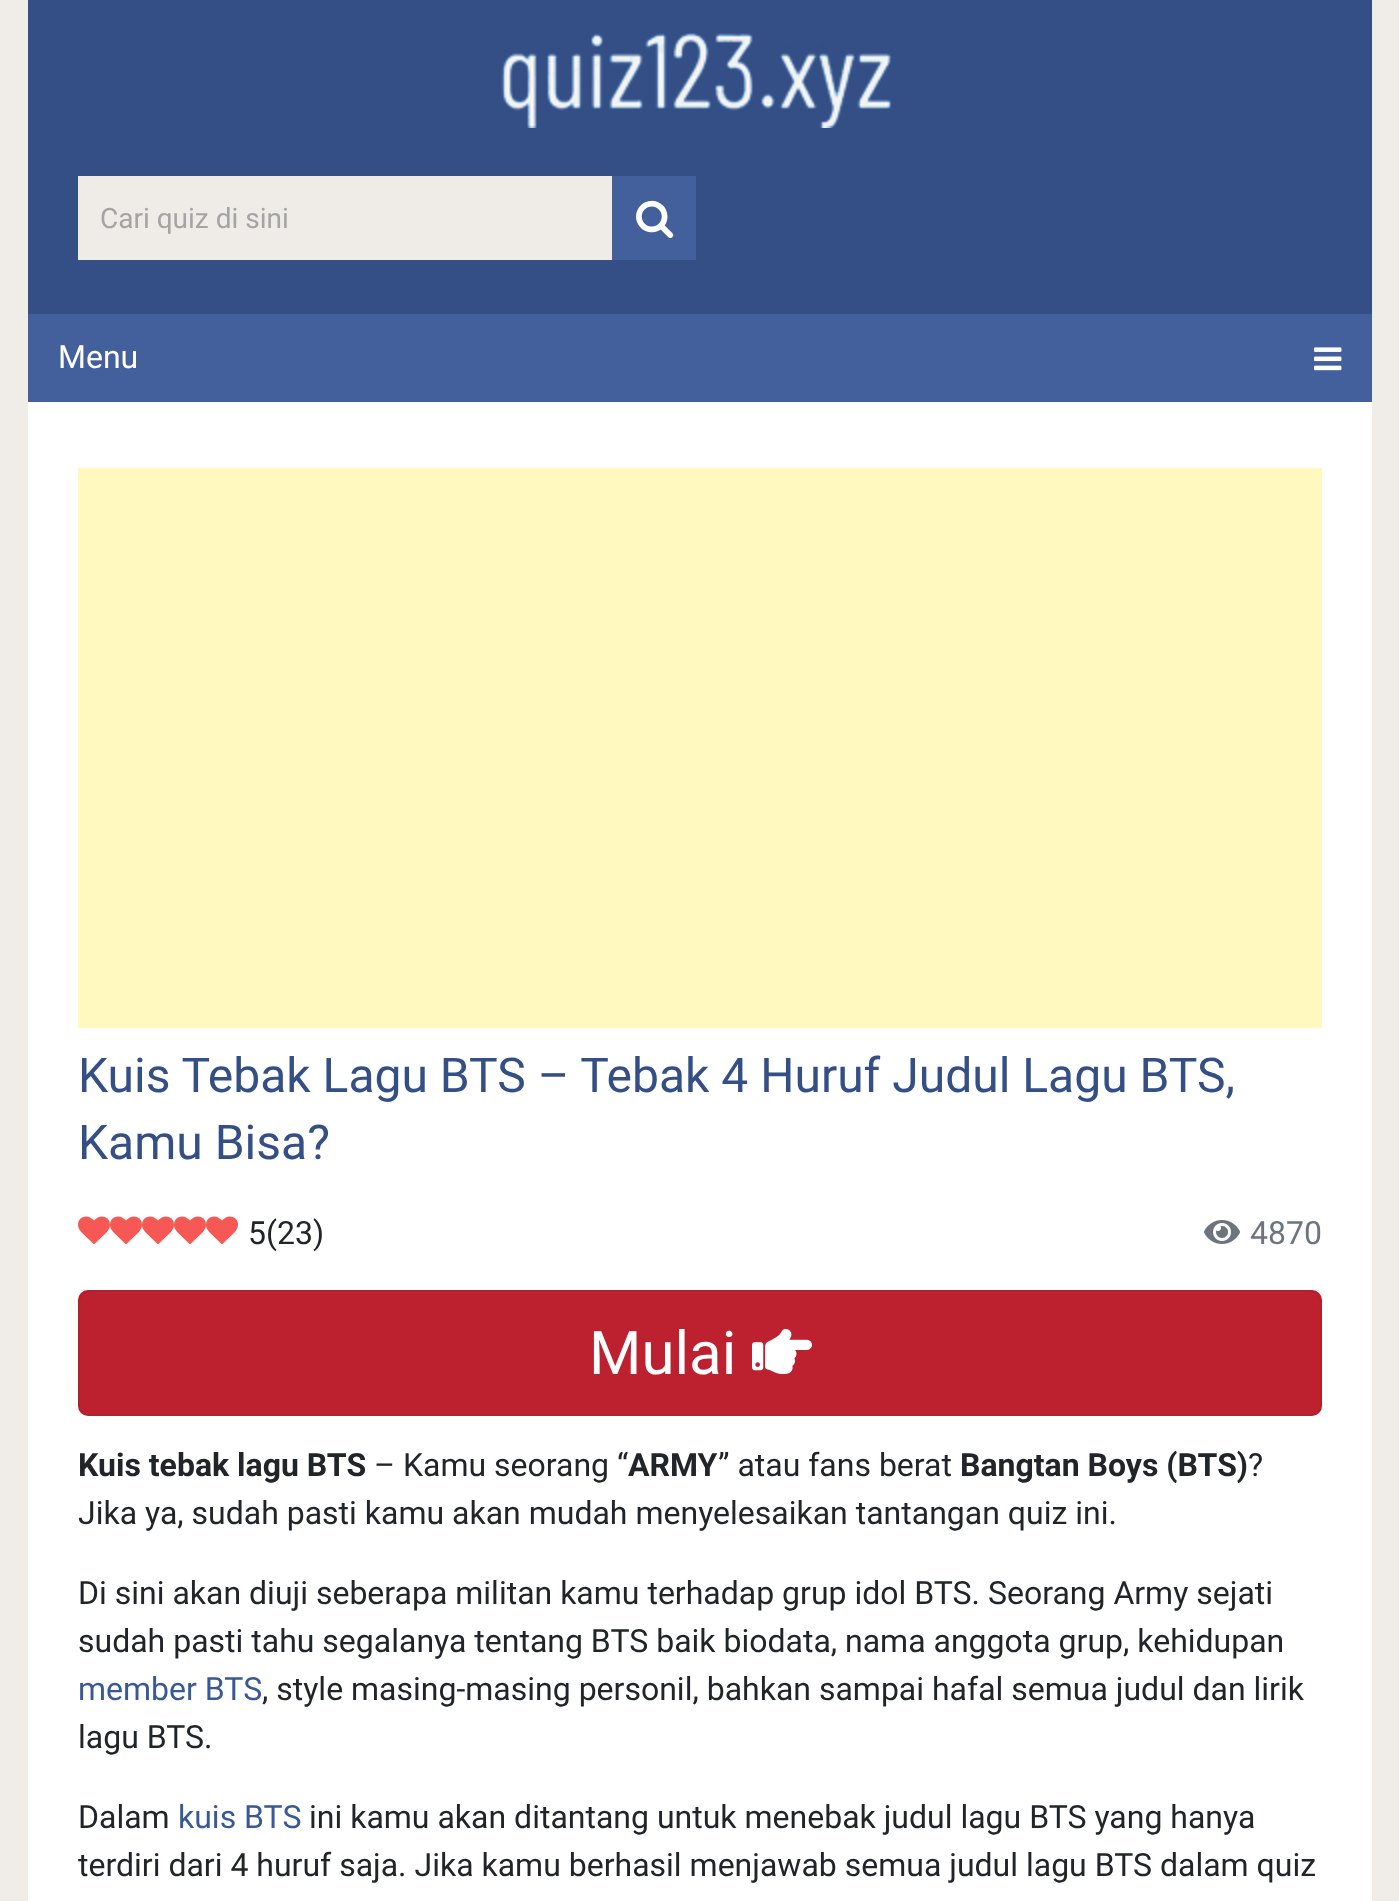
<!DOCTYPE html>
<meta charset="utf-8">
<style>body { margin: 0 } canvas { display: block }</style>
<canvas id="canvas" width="1399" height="1901"></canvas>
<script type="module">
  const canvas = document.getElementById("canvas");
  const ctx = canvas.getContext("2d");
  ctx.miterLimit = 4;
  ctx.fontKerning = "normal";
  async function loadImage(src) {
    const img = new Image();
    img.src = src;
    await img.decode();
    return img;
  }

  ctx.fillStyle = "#f0ede9";
  ctx.fillRect(0, 0, 1399, 1901);
  ctx.fillStyle = "#344e86";
  ctx.fillRect(28, 0, 1344, 314);
  ctx.drawImage(await loadImage("img1.png"), 501, 33, 391, 95);
  ctx.fillStyle = "#efebe7";
  ctx.fillRect(78, 176, 534, 84);
  ctx.font = "28px Roboto";
  ctx.fillStyle = "#a4a4a4";
  ctx.fillText("Cari quiz di sini", 100, 228);
  ctx.fillStyle = "#43609c";
  ctx.fillRect(612, 176, 84, 84);
  ctx.drawImage(await loadImage("img2.png"), 636, 200, 38, 38);
  ctx.fillRect(28, 314, 1344, 88);
  ctx.font = "32px Roboto";
  ctx.fillStyle = "#ffffff";
  ctx.fillText("Menu", 58, 368);
  ctx.drawImage(await loadImage("img3.png"), 1314, 347, 28, 24);
  ctx.fillRect(28, 402, 1344, 1499);
  ctx.fillStyle = "#fff9c0";
  ctx.fillRect(78, 468, 1244, 560);
  ctx.font = "48px Roboto";
  ctx.fillStyle = "#344e86";
  ctx.fillText("Kuis Tebak Lagu BTS – Tebak 4 Huruf Judul Lagu BTS,", 78, 1092);
  ctx.fillText("Kamu Bisa?", 78, 1159);
  ctx.drawImage(await loadImage("img4.png"), 78, 1216, 32, 28);
  ctx.drawImage(await loadImage("img4.png"), 110, 1216, 32, 28);
  ctx.drawImage(await loadImage("img4.png"), 142, 1216, 32, 28);
  ctx.drawImage(await loadImage("img4.png"), 174, 1216, 32, 28);
  ctx.drawImage(await loadImage("img4.png"), 206, 1216, 32, 28);
  ctx.font = "32px Roboto";
  ctx.fillStyle = "#212529";
  ctx.fillText("5(23)", 248, 1244);
  ctx.drawImage(await loadImage("img5.png"), 1204, 1220, 36, 24);
  ctx.fillStyle = "#6c757d";
  ctx.fillText("4870", 1250, 1244);
  ctx.fillStyle = "#bd2130";
  ctx.beginPath();
  ctx.roundRect(79, 1291, 1242, 124, 9);
  ctx.fill();
  ctx.strokeStyle = "#b21f2d";
  ctx.lineWidth = 2;
  ctx.stroke();
  ctx.font = "60px Roboto";
  ctx.fillStyle = "#ffffff";
  ctx.fillText("Mulai", 589, 1374);
  ctx.drawImage(await loadImage("img6.png"), 752, 1329, 60, 45);
  ctx.font = "bold 32px Roboto";
  ctx.fillStyle = "#212529";
  ctx.fillText("Kuis tebak lagu BTS", 78, 1476);
  ctx.font = "32px Roboto";
  ctx.fillText("– Kamu seorang “", 374, 1476);
  ctx.font = "bold 32px Roboto";
  ctx.fillText("ARMY", 628, 1476);
  ctx.font = "32px Roboto";
  ctx.fillText("” atau fans berat", 718, 1476);
  ctx.font = "bold 32px Roboto";
  ctx.fillText("Bangtan Boys (BTS)", 960, 1476);
  ctx.font = "32px Roboto";
  ctx.fillText("?", 1248, 1476);
  ctx.fillText("Jika ya, sudah pasti kamu akan mudah menyelesaikan tantangan quiz ini.", 78, 1524);
  ctx.fillText("Di sini akan diuji seberapa militan kamu terhadap grup idol BTS. Seorang Army sejati", 78, 1604);
  ctx.fillText("sudah pasti tahu segalanya tentang BTS baik biodata, nama anggota grup, kehidupan", 78, 1652);
  ctx.fillStyle = "#385898";
  ctx.fillText("member BTS", 78, 1700);
  ctx.fillStyle = "#212529";
  ctx.fillText(", style masing-masing personil, bahkan sampai hafal semua judul dan lirik", 262, 1700);
  ctx.fillText("lagu BTS.", 78, 1748);
  ctx.fillText("Dalam", 78, 1828);
  ctx.fillStyle = "#385898";
  ctx.fillText("kuis BTS", 178, 1828);
  ctx.fillStyle = "#212529";
  ctx.fillText("ini kamu akan ditantang untuk menebak judul lagu BTS yang hanya", 309, 1828);
  ctx.fillText("terdiri dari 4 huruf saja. Jika kamu berhasil menjawab semua judul lagu BTS dalam quiz", 78, 1876);
</script>
